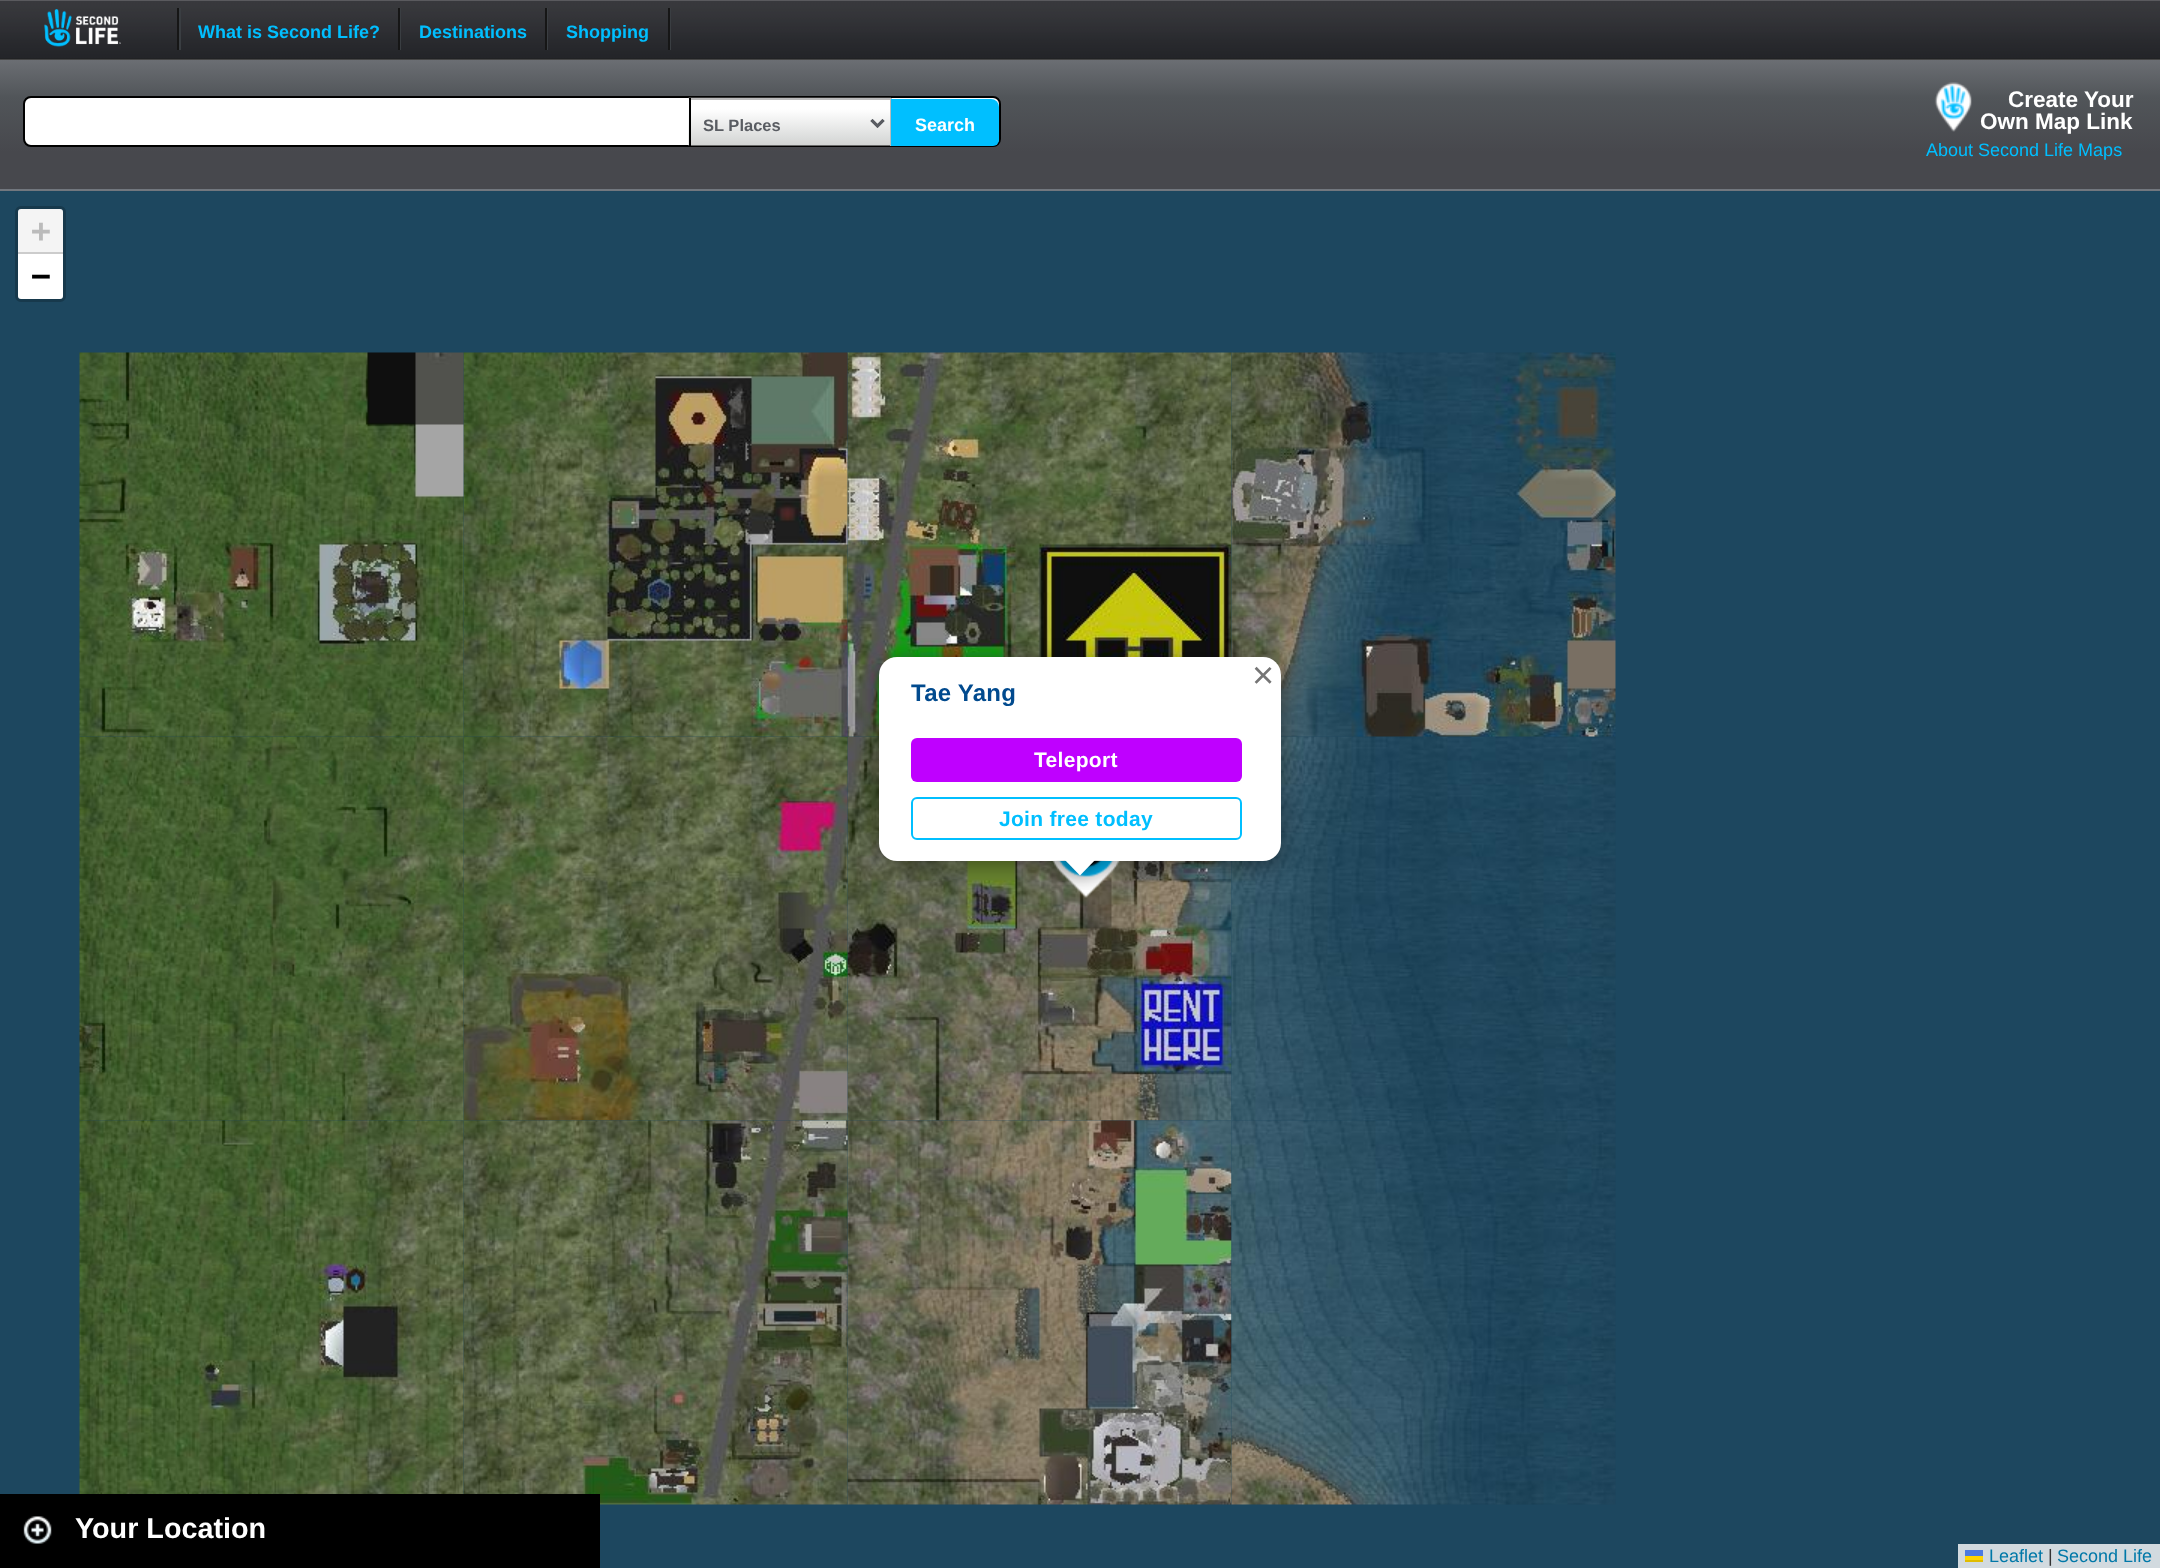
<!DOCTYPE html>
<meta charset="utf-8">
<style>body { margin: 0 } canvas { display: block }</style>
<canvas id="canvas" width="2160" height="1568"></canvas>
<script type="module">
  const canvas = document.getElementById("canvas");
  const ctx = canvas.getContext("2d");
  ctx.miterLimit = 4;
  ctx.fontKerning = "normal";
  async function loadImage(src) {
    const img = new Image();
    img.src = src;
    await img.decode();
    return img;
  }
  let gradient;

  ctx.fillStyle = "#ffffff";
  ctx.fillRect(0, 0, 2160, 1568);
  ctx.drawImage(await loadImage("img1.png"), 0, 0, 2160, 60);
  ctx.drawImage(await loadImage("img2.png"), 44, 9, 77, 38);
  ctx.fillStyle = "#3a3e42";
  ctx.fillRect(179, 8, 2, 42);
  ctx.fillStyle = "#161616";
  ctx.fillRect(177, 8, 2, 42);
  ctx.font = "bold 18px Liberation Sans";
  ctx.fillStyle = "#00bfff";
  ctx.fillText("What is Second Life?", 198, 38);
  ctx.fillStyle = "#3a3e42";
  ctx.fillRect(400, 8, 1, 42);
  ctx.fillStyle = "#161616";
  ctx.fillRect(398, 8, 2, 42);
  ctx.fillStyle = "#00bfff";
  ctx.fillText("Destinations", 419, 38);
  ctx.fillStyle = "#3a3e42";
  ctx.fillRect(547, 8, 1, 42);
  ctx.fillStyle = "#161616";
  ctx.fillRect(545, 8, 2, 42);
  ctx.fillStyle = "#00bfff";
  ctx.fillText("Shopping", 566, 38);
  ctx.fillStyle = "#3a3e42";
  ctx.fillRect(670, 8, 1, 42);
  ctx.fillStyle = "#161616";
  ctx.fillRect(668, 8, 2, 42);
  gradient = ctx.createLinearGradient(0, 189, 0, 60);
  gradient.addColorStop(0.29, "#47484d");
  gradient.addColorStop(0.71, "#515559");
  gradient.addColorStop(1, "#6b6e73");
  ctx.fillStyle = gradient;
  ctx.fillRect(0, 60, 2160, 129);
  ctx.fillStyle = "#72777e";
  ctx.fillRect(0, 189, 2160, 2);
  ctx.fillStyle = "#ffffff";
  ctx.beginPath();
  ctx.roundRect(24, 97, 976, 49, 7);
  ctx.fill();
  ctx.strokeStyle = "#000000";
  ctx.lineWidth = 2;
  ctx.stroke();
  ctx.drawImage(await loadImage("img3.png"), 688, 97, 203, 49);
  ctx.fillStyle = "#bbbbbb";
  ctx.fillRect(689, 98, 202, 2);
  ctx.fillRect(890, 98, 2, 48);
  ctx.fillStyle = "#000000";
  ctx.fillRect(689, 98, 2, 48);
  ctx.beginPath();
  ctx.moveTo(871.5, 120);
  ctx.lineTo(877.5, 126);
  ctx.lineTo(883.5, 120);
  ctx.strokeStyle = "#595c62";
  ctx.lineWidth = 3;
  ctx.stroke();
  ctx.font = "bold 16.5px Liberation Sans";
  ctx.fillStyle = "#595c62";
  ctx.fillText("SL Places", 703, 131);
  ctx.save();
  ctx.beginPath();
  ctx.roundRect(24, 98, 975, 48, 6);
  ctx.clip();
  ctx.fillStyle = "#00bfff";
  ctx.beginPath();
  ctx.roundRect(891, 99, 108, 51, [0, 8, 8, 0]);
  ctx.fill();
  ctx.restore();
  ctx.font = "bold 18px Liberation Sans";
  ctx.fillStyle = "#ffffff";
  ctx.fillText("Search", 915, 131);
  ctx.drawImage(await loadImage("img4.png"), 1934, 82, 38, 50);
  ctx.font = "bold 22.5px Liberation Sans";
  ctx.fillText("Create Your", 2008, 107);
  ctx.fillText("Own Map Link", 1980, 129);
  ctx.font = "18px Liberation Sans";
  ctx.fillStyle = "#00bfff";
  ctx.fillText("About Second Life Maps", 1926, 156);
  ctx.fillStyle = "#1d475f";
  ctx.fillRect(0, 191, 2160, 1377);
  ctx.beginPath();
  ctx.roundRect(16.5, 207.5, 48, 93, 4.5);
  ctx.strokeStyle = "#17394c";
  ctx.stroke();
  ctx.fillStyle = "#f4f4f4";
  ctx.beginPath();
  ctx.roundRect(18, 209, 45, 45, [3, 3, 0, 0]);
  ctx.fill();
  ctx.fillStyle = "#cccccc";
  ctx.fillRect(18, 252, 45, 2);
  ctx.font = "bold 33px DejaVu Sans Mono";
  ctx.fillStyle = "#bbbbbb";
  ctx.fillText("+", 31, 242);
  ctx.fillStyle = "#ffffff";
  ctx.beginPath();
  ctx.roundRect(18, 254, 45, 45, [0, 0, 3, 3]);
  ctx.fill();
  ctx.fillStyle = "#000000";
  ctx.fillText("−", 31, 287);
  ctx.fillStyle = "#d2dadf";
  ctx.fillRect(1958, 1544, 202, 24);
  ctx.font = "18px Liberation Sans";
  ctx.fillStyle = "#0078a8";
  ctx.fillText("Leaflet", 1989, 1562);
  ctx.fillStyle = "#4c7be1";
  ctx.fillRect(1965, 1550, 18, 6);
  ctx.fillStyle = "#ffd500";
  ctx.fillRect(1965, 1556, 18, 4);
  ctx.fillStyle = "#e0bc00";
  ctx.fillRect(1965, 1560, 18, 2);
  ctx.fillStyle = "#333333";
  ctx.fillText("|", 2048, 1562);
  ctx.fillStyle = "#0078a8";
  ctx.fillText("Second Life", 2057, 1562);
  ctx.drawImage(await loadImage("img11.png"), 847, 736, 385, 385);
  ctx.drawImage(await loadImage("img12.png"), 1231, 736, 385, 385);
  ctx.drawImage(await loadImage("img7.png"), 847, 352, 385, 385);
  ctx.drawImage(await loadImage("img15.png"), 847, 1120, 385, 385);
  ctx.drawImage(await loadImage("img10.png"), 463, 736, 385, 385);
  ctx.drawImage(await loadImage("img6.png"), 463, 352, 385, 385);
  ctx.drawImage(await loadImage("img14.png"), 463, 1120, 385, 385);
  ctx.drawImage(await loadImage("img9.png"), 79, 736, 385, 385);
  ctx.drawImage(await loadImage("img5.png"), 79, 352, 385, 385);
  ctx.drawImage(await loadImage("img8.png"), 1231, 352, 385, 385);
  ctx.drawImage(await loadImage("img13.png"), 79, 1120, 385, 374);
  ctx.drawImage(await loadImage("img16.png"), 1231, 1120, 385, 385);
  ctx.drawImage(await loadImage("img17.png"), 1052, 861, 68, 37);
  ctx.fillStyle = "rgba(0, 0, 0, 0.4)";
  ctx.filter = "blur(10.5px)";
  ctx.beginPath();
  ctx.roundRect(879, 662, 402, 204, 18);
  ctx.fill();
  ctx.filter = "none";
  ctx.fillStyle = "#ffffff";
  ctx.beginPath();
  ctx.roundRect(879, 657, 402, 204, 18);
  ctx.fill();
  ctx.font = "38px Liberation Sans";
  ctx.fillStyle = "#757575";
  ctx.fillText("×", 1252, 688);
  ctx.letterSpacing = "0.25px";
  ctx.font = "bold 24px Liberation Sans";
  ctx.fillStyle = "#014a8e";
  ctx.fillText("Tae Yang", 911, 701);
  ctx.fillStyle = "#bf00ff";
  ctx.beginPath();
  ctx.roundRect(911, 738, 331, 44, 6);
  ctx.fill();
  ctx.letterSpacing = "0.3px";
  ctx.font = "bold 21px Liberation Sans";
  ctx.fillStyle = "#ffffff";
  ctx.fillText("Teleport", 1034, 767);
  ctx.beginPath();
  ctx.roundRect(912, 798, 329, 41, 5);
  ctx.strokeStyle = "#00bfff";
  ctx.lineWidth = 2;
  ctx.stroke();
  ctx.fillStyle = "#00bfff";
  ctx.fillText("Join free today", 999, 826);
  ctx.save();
  ctx.beginPath();
  ctx.rect(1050, 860, 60, 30);
  ctx.clip();
  ctx.fillStyle = "rgba(0, 0, 0, 0.4)";
  ctx.filter = "blur(10.5px)";
  ctx.beginPath();
  ctx.rect(1068, 849, 26, 26);
  ctx.fill();
  ctx.filter = "none";
  ctx.restore();
  ctx.save();
  ctx.beginPath();
  ctx.rect(1050, 860, 60, 30);
  ctx.clip();
  ctx.fillStyle = "#ffffff";
  ctx.beginPath();
  ctx.moveTo(1080, 839);
  ctx.lineTo(1098, 857);
  ctx.lineTo(1080, 875.5);
  ctx.lineTo(1062, 857);
  ctx.closePath();
  ctx.fill();
  ctx.restore();
  ctx.fillStyle = "#000000";
  ctx.fillRect(0, 1494, 600, 74);
  ctx.drawImage(await loadImage("img18.png"), 23, 1516, 29, 28);
  ctx.letterSpacing = "0px";
  ctx.font = "bold 28.75px Liberation Sans";
  ctx.fillStyle = "#ffffff";
  ctx.fillText("Your Location", 75, 1538);
</script>
